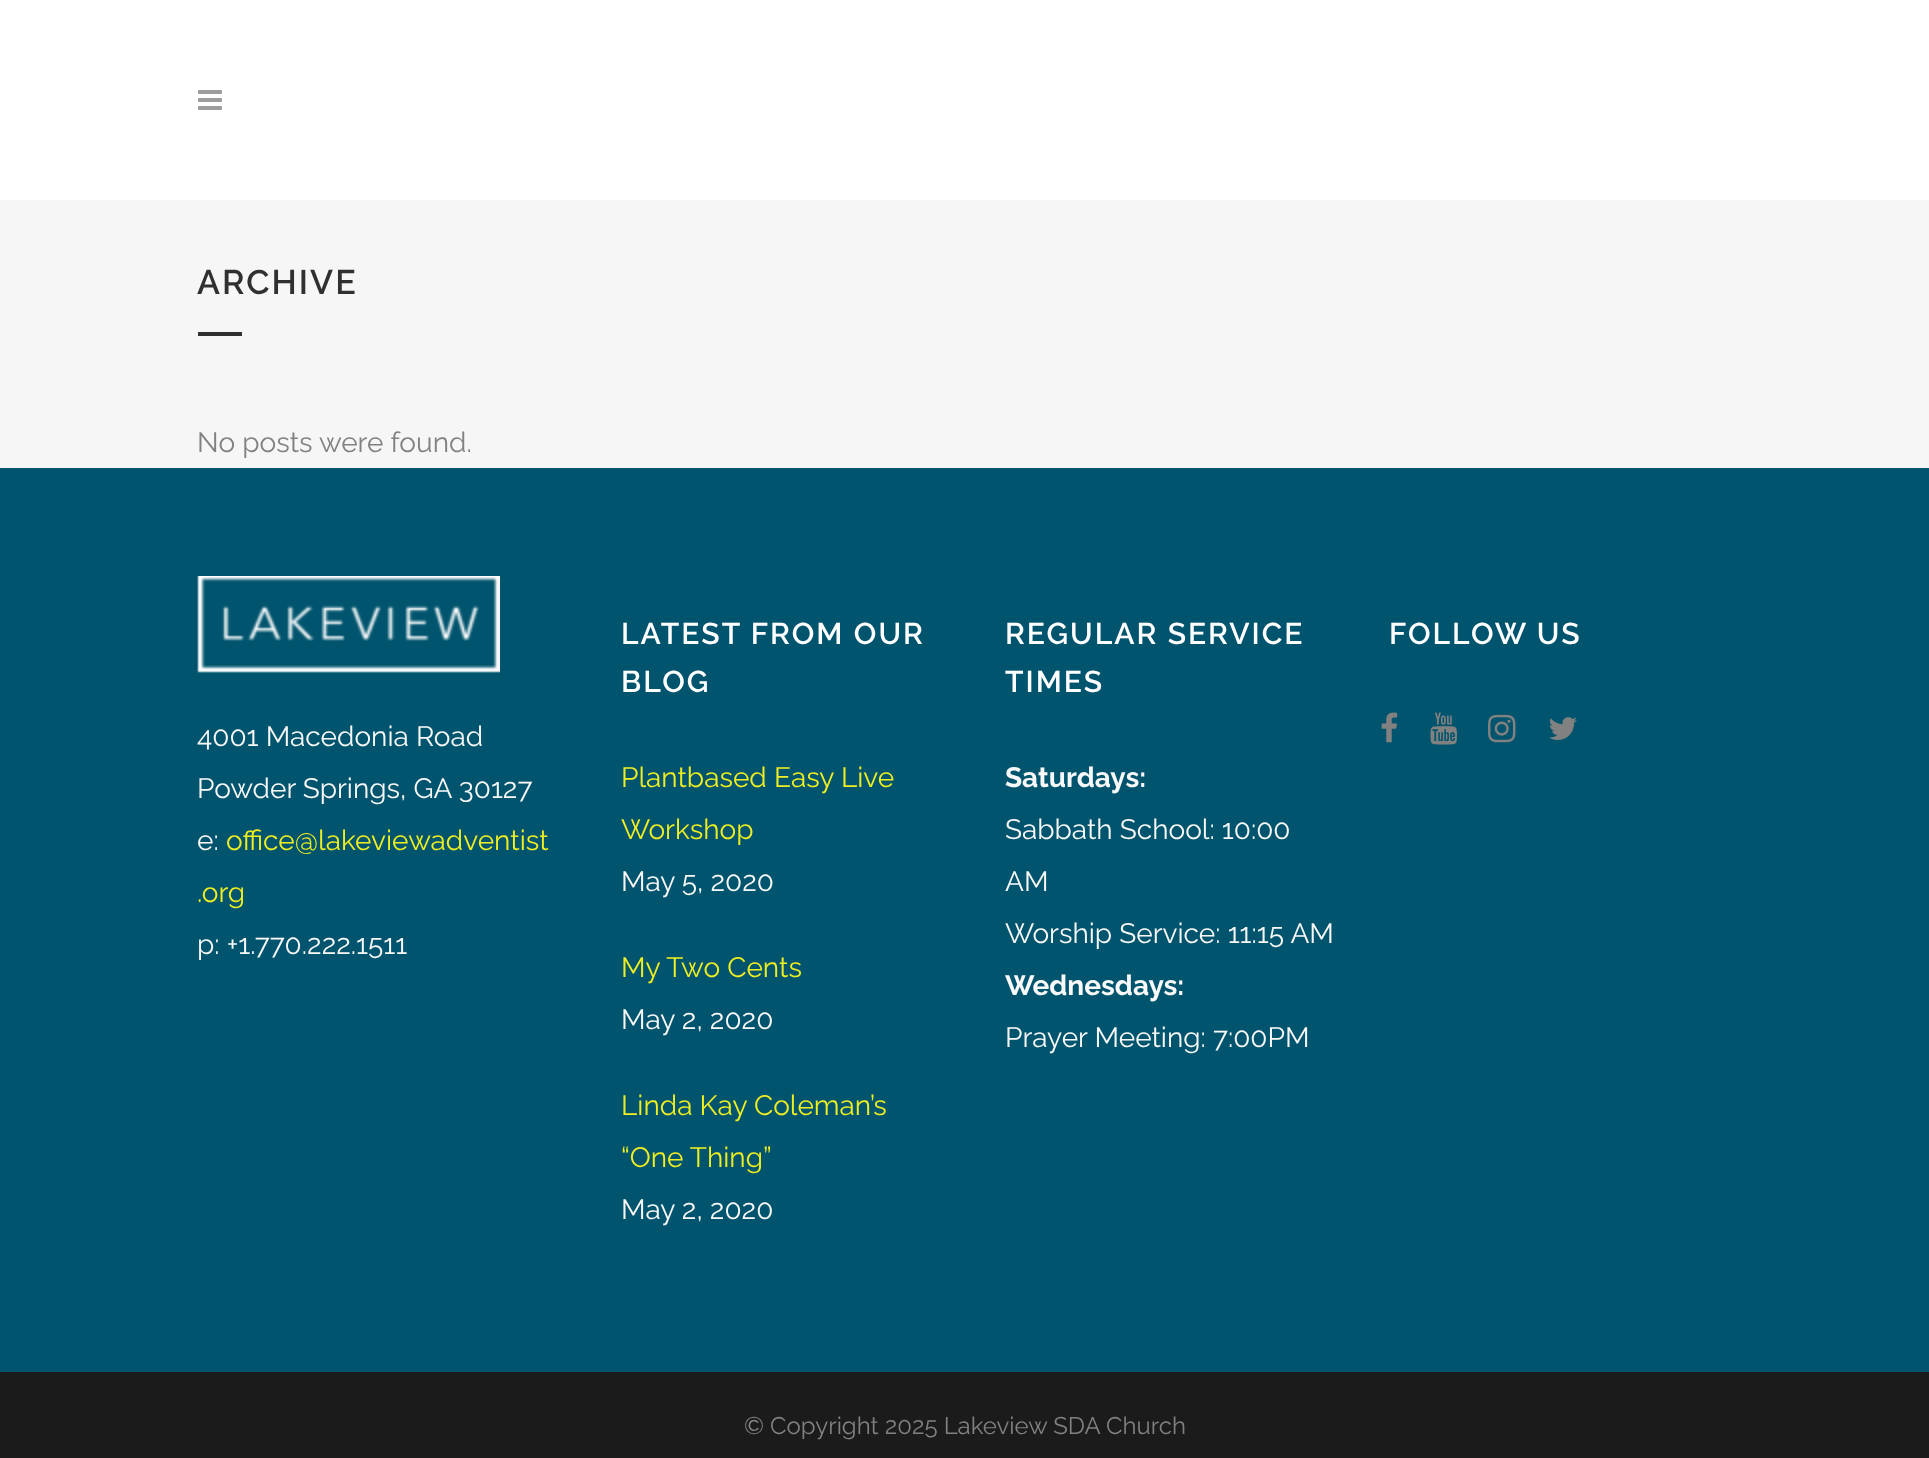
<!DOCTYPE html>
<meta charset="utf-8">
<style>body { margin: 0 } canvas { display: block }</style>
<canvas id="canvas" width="1929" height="1458"></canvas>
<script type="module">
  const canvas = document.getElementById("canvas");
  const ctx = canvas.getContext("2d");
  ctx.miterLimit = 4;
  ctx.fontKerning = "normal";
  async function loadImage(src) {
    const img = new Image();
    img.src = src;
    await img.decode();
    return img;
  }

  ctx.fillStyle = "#f6f6f6";
  ctx.fillRect(0, 0, 1929, 1458);
  ctx.fillStyle = "#ffffff";
  ctx.fillRect(0, 0, 1929, 200);
  ctx.drawImage(await loadImage("img1.png"), 198, 90, 24, 20);
  ctx.letterSpacing = "2px";
  ctx.font = "600 34px Raleway";
  ctx.fillStyle = "#303030";
  ctx.fillText("ARCHIVE", 197, 294);
  ctx.fillRect(198, 332, 44, 4);
  ctx.letterSpacing = "0px";
  ctx.font = "28px Raleway";
  ctx.fillStyle = "#818181";
  ctx.fillText("No posts were found.", 197, 452);
  ctx.fillStyle = "#00546d";
  ctx.fillRect(0, 468, 1929, 904);
  ctx.letterSpacing = "2px";
  ctx.font = "600 30px Raleway";
  ctx.fillStyle = "#ffffff";
  ctx.fillText("LATEST FROM OUR", 621, 644);
  ctx.fillText("BLOG", 621, 692);
  ctx.letterSpacing = "0px";
  ctx.font = "28px Raleway";
  ctx.fillStyle = "#eeee22";
  ctx.fillText("Plantbased Easy Live", 621, 787);
  ctx.fillText("Workshop", 621, 839);
  ctx.fillStyle = "#f9f9f9";
  ctx.fillText("May 5, 2020", 621, 891);
  ctx.fillStyle = "#eeee22";
  ctx.fillText("My Two Cents", 621, 977);
  ctx.fillStyle = "#f9f9f9";
  ctx.fillText("May 2, 2020", 621, 1029);
  ctx.fillStyle = "#eeee22";
  ctx.fillText("Linda Kay Coleman’s", 621, 1115);
  ctx.fillText("“One Thing”", 621, 1167);
  ctx.fillStyle = "#f9f9f9";
  ctx.fillText("May 2, 2020", 621, 1219);
  ctx.letterSpacing = "2px";
  ctx.font = "600 30px Raleway";
  ctx.fillStyle = "#ffffff";
  ctx.fillText("REGULAR SERVICE", 1005, 644);
  ctx.fillText("TIMES", 1005, 692);
  ctx.letterSpacing = "0px";
  ctx.font = "bold 28px Raleway";
  ctx.fillStyle = "#f9f9f9";
  ctx.fillText("Saturdays:", 1005, 787);
  ctx.font = "28px Raleway";
  ctx.fillText("Sabbath School: 10:00", 1005, 839);
  ctx.fillText("AM", 1005, 891);
  ctx.fillText("Worship Service: 11:15 AM", 1005, 943);
  ctx.font = "bold 28px Raleway";
  ctx.fillText("Wednesdays:", 1005, 995);
  ctx.font = "28px Raleway";
  ctx.fillText("Prayer Meeting: 7:00PM", 1005, 1047);
  ctx.letterSpacing = "2px";
  ctx.font = "600 30px Raleway";
  ctx.fillStyle = "#ffffff";
  ctx.fillText("FOLLOW US", 1389, 644);
  ctx.drawImage(await loadImage("img2.png"), 1381, 712, 17, 31);
  ctx.drawImage(await loadImage("img3.png"), 1430, 712, 27, 33);
  ctx.drawImage(await loadImage("img4.png"), 1488, 714, 28, 29);
  ctx.drawImage(await loadImage("img5.png"), 1549, 717, 28, 23);
  ctx.drawImage(await loadImage("img6.png"), 197, 576, 303, 97);
  ctx.letterSpacing = "0px";
  ctx.font = "28px Raleway";
  ctx.fillStyle = "#f9f9f9";
  ctx.fillText("4001 Macedonia Road", 197, 746);
  ctx.fillText("Powder Springs, GA 30127", 197, 798);
  ctx.fillText("e:", 197, 850);
  ctx.fillStyle = "#eeee22";
  ctx.fillText("office@lakeviewadventist", 226, 850);
  ctx.fillText(".org", 197, 902);
  ctx.fillStyle = "#f9f9f9";
  ctx.fillText("p: +1.770.222.1511", 197, 954);
  ctx.fillStyle = "#1b1b1b";
  ctx.fillRect(0, 1372, 1929, 86);
  ctx.font = "24px Raleway";
  ctx.fillStyle = "#818181";
  ctx.fillText("© Copyright 2025 Lakeview SDA Church", 744, 1434);
</script>
